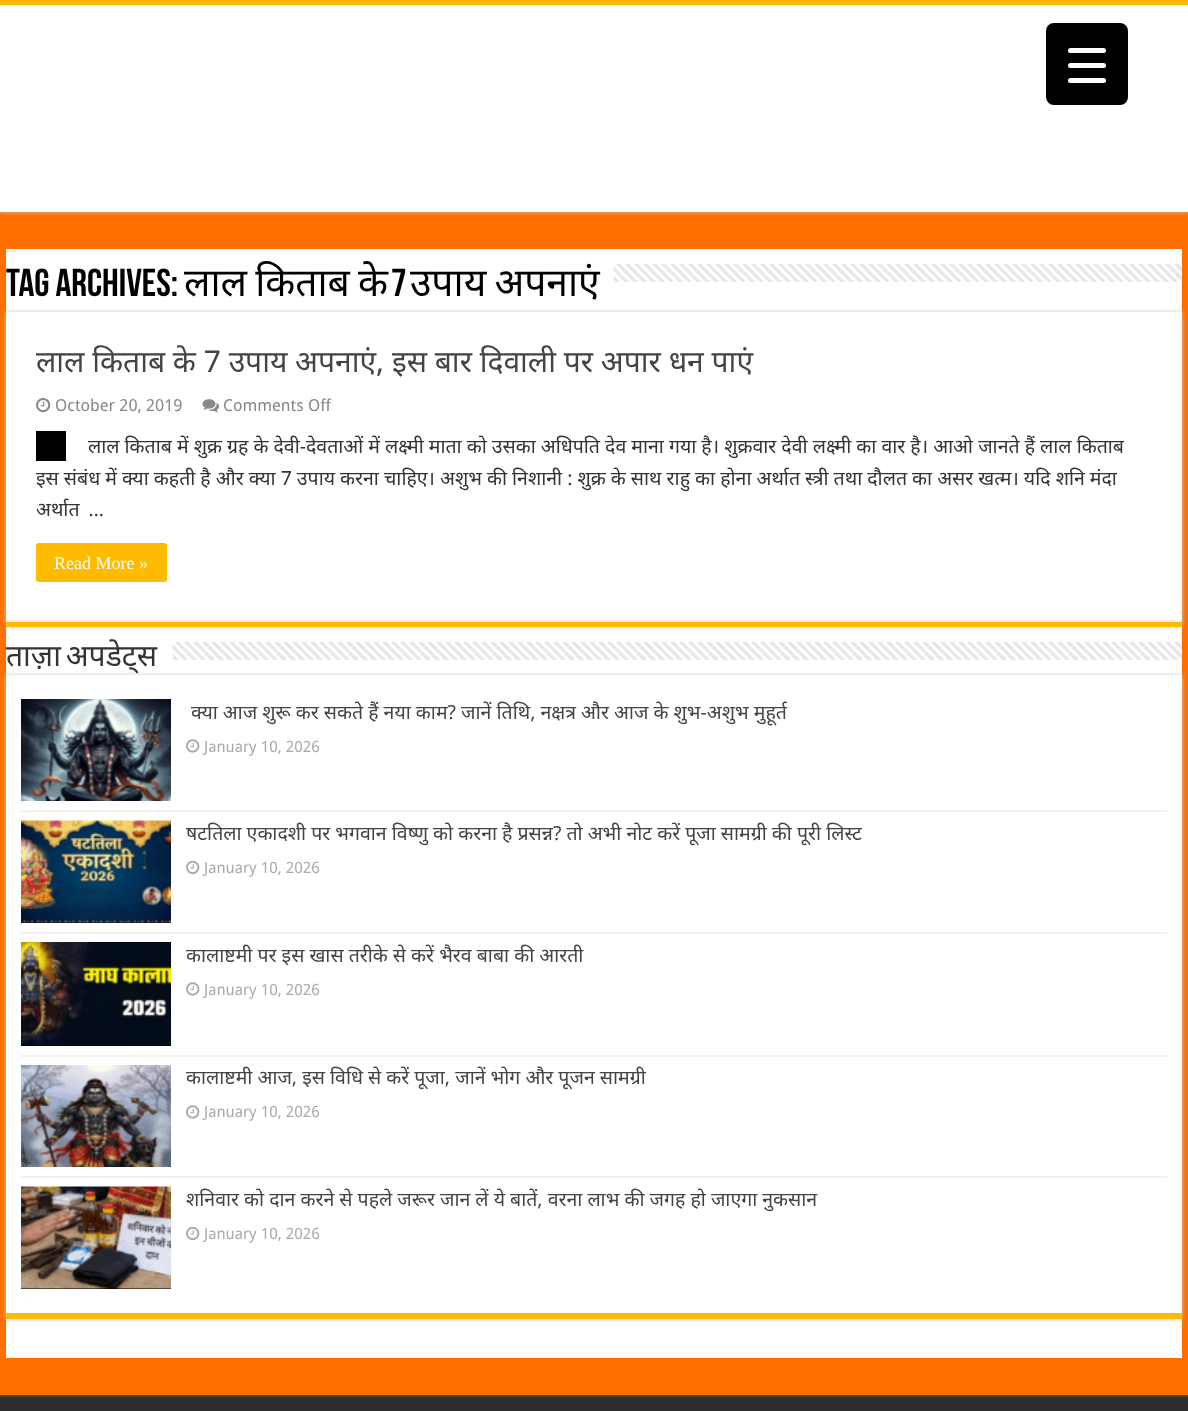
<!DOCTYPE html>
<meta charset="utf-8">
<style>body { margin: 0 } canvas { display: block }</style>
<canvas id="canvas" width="1188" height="1411"></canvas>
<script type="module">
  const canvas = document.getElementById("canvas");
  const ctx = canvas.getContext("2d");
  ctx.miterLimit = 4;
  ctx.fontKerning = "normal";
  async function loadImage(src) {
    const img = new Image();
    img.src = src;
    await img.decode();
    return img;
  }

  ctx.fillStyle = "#ff6f00";
  ctx.fillRect(0, 0, 1188, 1411);
  ctx.fillStyle = "#cacaca";
  ctx.filter = "blur(2px)";
  ctx.beginPath();
  ctx.rect(0, 0, 1188, 212);
  ctx.fill();
  ctx.filter = "none";
  ctx.fillStyle = "#ffffff";
  ctx.fillRect(0, 5, 1188, 207);
  ctx.fillStyle = "#000000";
  ctx.beginPath();
  ctx.roundRect(1046, 23, 82, 82, 8);
  ctx.fill();
  ctx.fillStyle = "#ffffff";
  ctx.beginPath();
  ctx.roundRect(1068, 63, 38, 5, 2.5);
  ctx.fill();
  ctx.beginPath();
  ctx.roundRect(1068, 48, 38, 5, 2.5);
  ctx.fill();
  ctx.beginPath();
  ctx.roundRect(1068, 78, 38, 5, 2.5);
  ctx.fill();
  ctx.fillStyle = "#ffbb01";
  ctx.fillRect(0, 0, 1188, 5);
  ctx.fillStyle = "#ffffff";
  ctx.fillRect(6, 249, 1176, 1109);
  ctx.font = "bold 39px Bebas Neue";
  ctx.fillStyle = "#000000";
  ctx.fillText("Tag Archives:", 6, 296);
  ctx.wordSpacing = "-2px";
  ctx.font = "39px Noto Sans";
  ctx.fillText("लाल किताब के", 184, 296);
  ctx.wordSpacing = "0px";
  ctx.font = "bold 39px Bebas Neue";
  ctx.fillText("7", 391, 296);
  ctx.wordSpacing = "-2px";
  ctx.font = "39px Noto Sans";
  ctx.fillText("उपाय अपनाएं", 410, 296);
  ctx.drawImage(await loadImage("img1.png"), 613, 264, 569, 18);
  ctx.save();
  ctx.beginPath();
  ctx.moveTo(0, 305);
  ctx.lineTo(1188, 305);
  ctx.lineTo(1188, 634);
  ctx.lineTo(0, 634);
  ctx.closePath();
  ctx.moveTo(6, 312);
  ctx.lineTo(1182, 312);
  ctx.lineTo(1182, 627);
  ctx.lineTo(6, 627);
  ctx.closePath();
  ctx.clip("evenodd");
  ctx.fillStyle = "#cacaca";
  ctx.filter = "blur(2px)";
  ctx.beginPath();
  ctx.rect(6, 312, 1176, 315);
  ctx.fill();
  ctx.filter = "none";
  ctx.restore();
  ctx.fillStyle = "#ffbb01";
  ctx.fillRect(6, 622, 1176, 5);
  ctx.fillStyle = "#f2f2f2";
  ctx.fillRect(6, 620, 1176, 2);
  ctx.wordSpacing = "0px";
  ctx.font = "30px Noto Sans";
  ctx.fillStyle = "#444444";
  ctx.fillText("लाल किताब के 7 उपाय अपनाएं, इस बार दिवाली पर अपार धन पाएं", 36, 372);
  ctx.drawImage(await loadImage("img2.png"), 36, 398, 15, 15);
  ctx.font = "16.5px Droid Sans";
  ctx.fillStyle = "#888888";
  ctx.fillText("October 20, 2019", 55, 411);
  ctx.drawImage(await loadImage("img3.png"), 202, 399, 17, 14);
  ctx.fillText("Comments Off", 223, 411);
  ctx.fillStyle = "#000000";
  ctx.fillRect(36, 431, 30, 30);
  ctx.font = "19.5px Noto Sans";
  ctx.fillStyle = "#333333";
  ctx.fillText("लाल किताब में शुक्र ग्रह के देवी-देवताओं में लक्ष्मी माता को उसका अधिपति देव माना गया है। शुक्रवार देवी लक्ष्मी का वार है। आओ जानते हैं लाल किताब", 88, 453);
  ctx.fillText("इस संबंध में क्या कहती है और क्या 7 उपाय करना चाहिए। अशुभ की निशानी : शुक्र के साथ राहु का होना अर्थात स्त्री तथा दौलत का असर खत्म। यदि शनि मंदा", 36, 485);
  ctx.wordSpacing = "4px";
  ctx.fillText("अर्थात …", 36, 516);
  ctx.fillStyle = "#ffbb01";
  ctx.beginPath();
  ctx.roundRect(36, 543, 131, 39, 3);
  ctx.fill();
  ctx.wordSpacing = "0px";
  ctx.font = "18px Liberation Serif";
  ctx.fillStyle = "#ffffff";
  ctx.fillText("Read More »", 54, 569);
  ctx.fillStyle = "#cacaca";
  ctx.filter = "blur(2px)";
  ctx.beginPath();
  ctx.rect(6, 675, 1176, 644);
  ctx.fill();
  ctx.filter = "none";
  ctx.wordSpacing = "-3px";
  ctx.font = "30px Noto Sans";
  ctx.fillStyle = "#333333";
  ctx.fillText("ताज़ा अपडेट्स", 6, 666);
  ctx.drawImage(await loadImage("img4.png"), 172, 642, 1010, 18);
  ctx.fillStyle = "#ffffff";
  ctx.fillRect(6, 675, 1176, 638);
  ctx.fillStyle = "#ffbb01";
  ctx.fillRect(6, 1313, 1176, 6);
  ctx.fillStyle = "#f2f2f2";
  ctx.fillRect(21, 810, 1146, 2);
  ctx.drawImage(await loadImage("img5.png"), 21, 699, 150, 102);
  ctx.wordSpacing = "0px";
  ctx.font = "19.5px Noto Sans";
  ctx.fillStyle = "#444444";
  ctx.fillText("क्या आज शुरू कर सकते हैं नया काम? जानें तिथि, नक्षत्र और आज के शुभ-अशुभ मुहूर्त", 191, 719);
  ctx.drawImage(await loadImage("img6.png"), 186, 739, 14, 14);
  ctx.font = "15.5px Droid Sans";
  ctx.fillStyle = "#aaaaaa";
  ctx.fillText("January 10, 2026", 204, 752);
  ctx.fillStyle = "#f2f2f2";
  ctx.fillRect(21, 932, 1146, 2);
  ctx.fillStyle = "#000000";
  ctx.fillRect(21, 922, 150, 1);
  ctx.drawImage(await loadImage("img7.png"), 21, 820, 150, 103);
  ctx.font = "19.5px Noto Sans";
  ctx.fillStyle = "#444444";
  ctx.fillText("षटतिला एकादशी पर भगवान विष्णु को करना है प्रसन्न? तो अभी नोट करें पूजा सामग्री की पूरी लिस्ट", 186, 840);
  ctx.drawImage(await loadImage("img8.png"), 186, 860, 14, 15);
  ctx.font = "15.5px Droid Sans";
  ctx.fillStyle = "#aaaaaa";
  ctx.fillText("January 10, 2026", 204, 873);
  ctx.fillStyle = "#f2f2f2";
  ctx.fillRect(21, 1055, 1146, 2);
  ctx.fillStyle = "#000000";
  ctx.fillRect(21, 1045, 150, 1);
  ctx.drawImage(await loadImage("img9.png"), 21, 942, 150, 104);
  ctx.font = "19.5px Noto Sans";
  ctx.fillStyle = "#444444";
  ctx.fillText("कालाष्टमी पर इस खास तरीके से करें भैरव बाबा की आरती", 186, 962);
  ctx.drawImage(await loadImage("img6.png"), 186, 982, 14, 14);
  ctx.font = "15.5px Droid Sans";
  ctx.fillStyle = "#aaaaaa";
  ctx.fillText("January 10, 2026", 204, 995);
  ctx.fillStyle = "#f2f2f2";
  ctx.fillRect(21, 1176, 1146, 2);
  ctx.drawImage(await loadImage("img10.png"), 21, 1065, 150, 102);
  ctx.font = "19.5px Noto Sans";
  ctx.fillStyle = "#444444";
  ctx.fillText("कालाष्टमी आज, इस विधि से करें पूजा, जानें भोग और पूजन सामग्री", 186, 1084);
  ctx.drawImage(await loadImage("img6.png"), 186, 1105, 14, 14);
  ctx.font = "15.5px Droid Sans";
  ctx.fillStyle = "#aaaaaa";
  ctx.fillText("January 10, 2026", 204, 1117);
  ctx.fillStyle = "#000000";
  ctx.fillRect(21, 1288, 150, 1);
  ctx.drawImage(await loadImage("img11.png"), 21, 1186, 150, 103);
  ctx.font = "19.5px Noto Sans";
  ctx.fillStyle = "#444444";
  ctx.fillText("शनिवार को दान करने से पहले जरूर जान लें ये बातें, वरना लाभ की जगह हो जाएगा नुकसान", 186, 1206);
  ctx.drawImage(await loadImage("img8.png"), 186, 1226, 14, 15);
  ctx.font = "15.5px Droid Sans";
  ctx.fillStyle = "#aaaaaa";
  ctx.fillText("January 10, 2026", 204, 1239);
  ctx.fillStyle = "#2e2e2e";
  ctx.fillRect(0, 1397, 1188, 14);
  ctx.fillStyle = "#444444";
  ctx.fillRect(0, 1395, 1188, 2);
</script>
